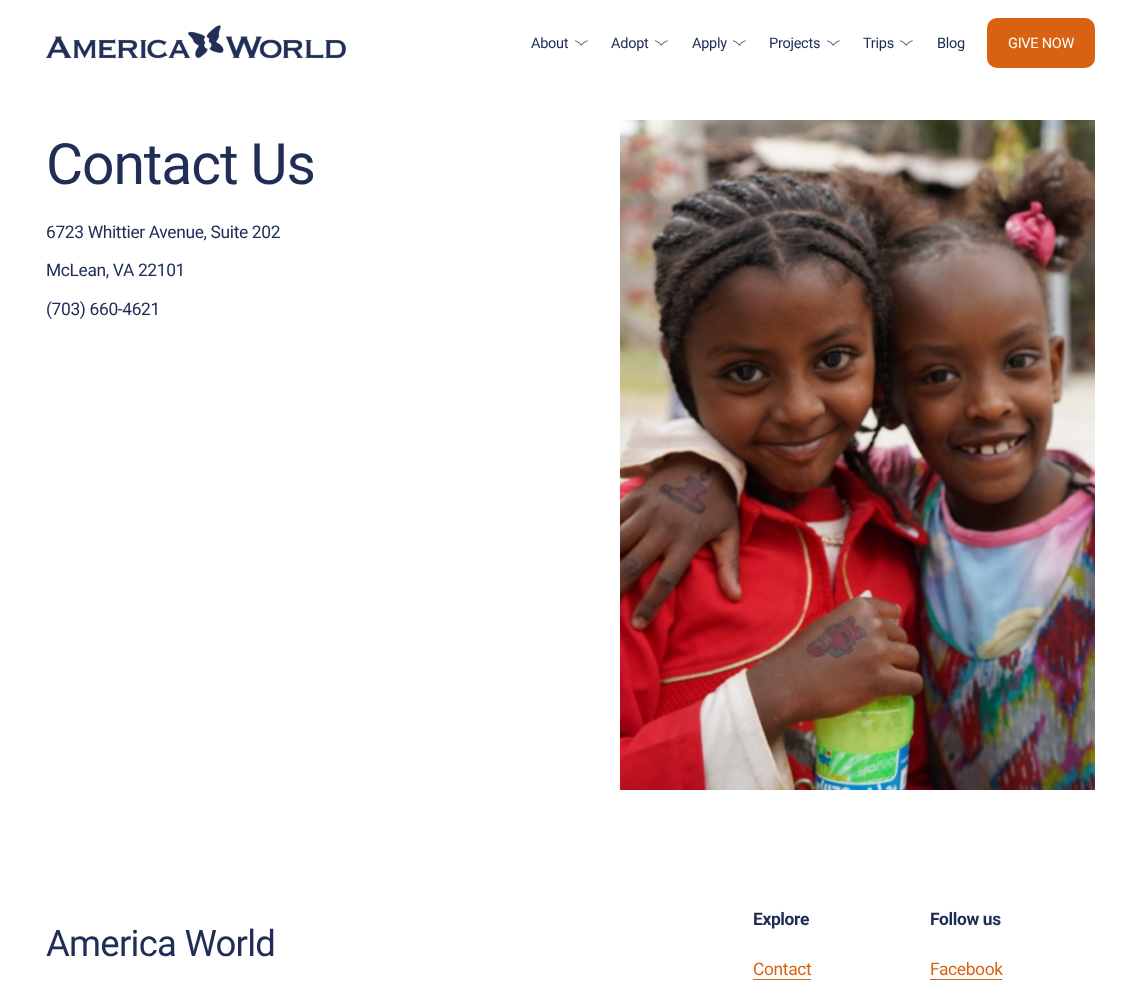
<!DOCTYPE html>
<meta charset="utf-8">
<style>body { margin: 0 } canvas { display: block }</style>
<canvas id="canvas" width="1141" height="981"></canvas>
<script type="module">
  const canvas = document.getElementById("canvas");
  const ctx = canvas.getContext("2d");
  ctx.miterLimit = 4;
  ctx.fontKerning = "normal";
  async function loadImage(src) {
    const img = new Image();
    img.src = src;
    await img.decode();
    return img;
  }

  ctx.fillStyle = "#ffffff";
  ctx.fillRect(0, 0, 1141, 981);
  ctx.drawImage(await loadImage("img1.png"), 46, 25, 300, 34);
  ctx.letterSpacing = "-0.25px";
  ctx.font = "14.5px Roboto";
  ctx.fillStyle = "#202e56";
  ctx.fillText("About", 531, 48);
  ctx.drawImage(await loadImage("img2.png"), 575, 40, 13, 6);
  ctx.fillText("Adopt", 611, 48);
  ctx.drawImage(await loadImage("img2.png"), 655, 40, 13, 6);
  ctx.fillText("Apply", 692, 48);
  ctx.drawImage(await loadImage("img2.png"), 733, 40, 13, 6);
  ctx.fillText("Projects", 769, 48);
  ctx.drawImage(await loadImage("img2.png"), 827, 40, 13, 6);
  ctx.fillText("Trips", 863, 48);
  ctx.drawImage(await loadImage("img2.png"), 900, 40, 13, 6);
  ctx.fillText("Blog", 937, 48);
  ctx.fillStyle = "#d96212";
  ctx.beginPath();
  ctx.roundRect(987, 18, 108, 50, 10);
  ctx.fill();
  ctx.fillStyle = "#ffffff";
  ctx.fillText("GIVE NOW", 1008, 48);
  ctx.letterSpacing = "-1.1px";
  ctx.font = "57px Roboto";
  ctx.fillStyle = "#202e56";
  ctx.fillText("Contact Us", 46, 184);
  ctx.drawImage(await loadImage("img3.png"), 620, 120, 475, 670);
  ctx.letterSpacing = "-0.35px";
  ctx.font = "17.4px Roboto";
  ctx.fillText("6723 Whittier Avenue, Suite 202", 46, 238);
  ctx.fillText("McLean, VA 22101", 46, 276);
  ctx.fillText("(703) 660-4621", 46, 315);
  ctx.font = "bold 17.4px Roboto";
  ctx.fillText("Explore", 753, 925);
  ctx.fillText("Follow us", 930, 925);
  ctx.letterSpacing = "-0.75px";
  ctx.font = "36.5px Roboto";
  ctx.fillText("America World", 46, 956);
  ctx.letterSpacing = "-0.35px";
  ctx.font = "17.4px Roboto";
  ctx.fillStyle = "#d96212";
  ctx.fillText("Contact", 753, 975);
  ctx.fillRect(753, 979, 58, 1);
  ctx.fillText("Facebook", 930, 975);
  ctx.fillRect(930, 979, 72, 1);
</script>
